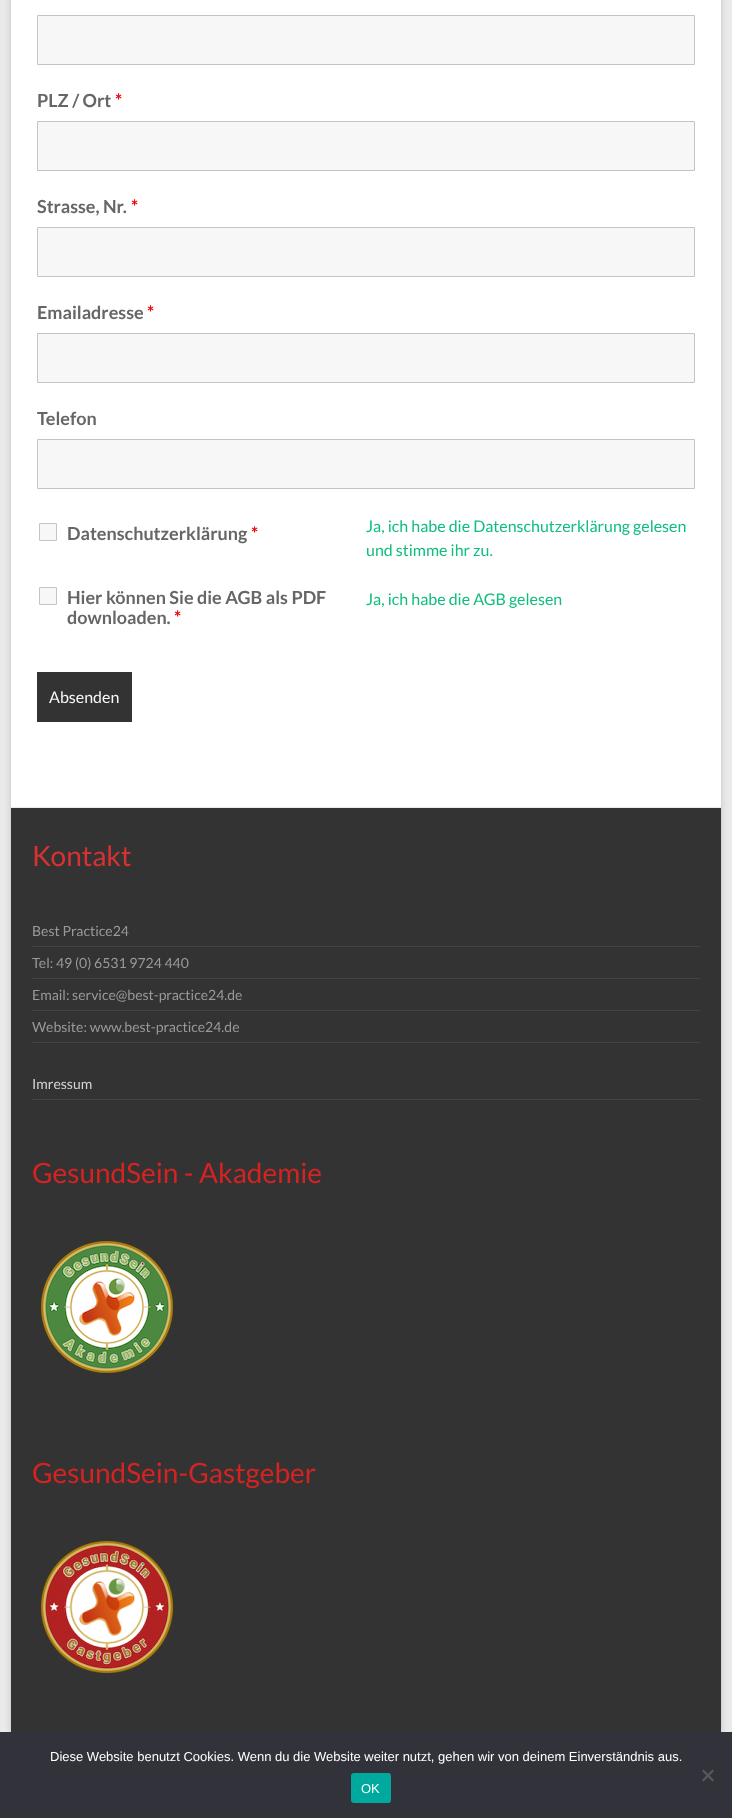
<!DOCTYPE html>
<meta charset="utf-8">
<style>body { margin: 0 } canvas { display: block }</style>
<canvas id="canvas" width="732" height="1818"></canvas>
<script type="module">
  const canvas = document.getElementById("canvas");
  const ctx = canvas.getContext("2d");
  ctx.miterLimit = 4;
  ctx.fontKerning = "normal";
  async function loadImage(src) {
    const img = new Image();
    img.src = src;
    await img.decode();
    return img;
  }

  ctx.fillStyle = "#eaeaea";
  ctx.fillRect(0, 0, 732, 1818);
  ctx.fillStyle = "rgba(100, 100, 100, 0.3)";
  ctx.filter = "blur(3px)";
  ctx.beginPath();
  ctx.rect(11, -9, 710, 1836);
  ctx.fill();
  ctx.filter = "none";
  ctx.fillStyle = "#ffffff";
  ctx.fillRect(11, 0, 710, 807);
  ctx.fillStyle = "#f7f7f7";
  ctx.beginPath();
  ctx.rect(37.5, 15.5, 657, 49);
  ctx.fill();
  ctx.strokeStyle = "#c4c4c4";
  ctx.stroke();
  ctx.font = "bold 18px Lato";
  ctx.fillStyle = "#666666";
  ctx.fillText("PLZ / Ort", 37, 107);
  ctx.fillStyle = "#e80000";
  ctx.fillText("*", 115, 107);
  ctx.fillStyle = "#f7f7f7";
  ctx.beginPath();
  ctx.rect(37.5, 121.5, 657, 49);
  ctx.fill();
  ctx.stroke();
  ctx.fillStyle = "#666666";
  ctx.fillText("Strasse, Nr.", 37, 213);
  ctx.fillStyle = "#e80000";
  ctx.fillText("*", 131, 213);
  ctx.fillStyle = "#f7f7f7";
  ctx.beginPath();
  ctx.rect(37.5, 227.5, 657, 49);
  ctx.fill();
  ctx.stroke();
  ctx.fillStyle = "#666666";
  ctx.fillText("Emailadresse", 37, 319);
  ctx.fillStyle = "#e80000";
  ctx.fillText("*", 147, 319);
  ctx.fillStyle = "#f7f7f7";
  ctx.beginPath();
  ctx.rect(37.5, 333.5, 657, 49);
  ctx.fill();
  ctx.stroke();
  ctx.fillStyle = "#666666";
  ctx.fillText("Telefon", 37, 425);
  ctx.fillStyle = "#f7f7f7";
  ctx.beginPath();
  ctx.rect(37.5, 439.5, 657, 49);
  ctx.fill();
  ctx.stroke();
  ctx.beginPath();
  ctx.rect(39.5, 523.5, 17, 17);
  ctx.fill();
  ctx.stroke();
  ctx.fillStyle = "#666666";
  ctx.fillText("Datenschutzerklärung", 67, 540);
  ctx.fillStyle = "#e80000";
  ctx.fillText("*", 251, 540);
  ctx.font = "16px Lato";
  ctx.fillStyle = "#0fbe7c";
  ctx.fillText("Ja, ich habe die Datenschutzerklärung gelesen", 366, 532);
  ctx.fillText("und stimme ihr zu.", 366, 556);
  ctx.fillStyle = "#f7f7f7";
  ctx.beginPath();
  ctx.rect(39.5, 587.5, 17, 17);
  ctx.fill();
  ctx.stroke();
  ctx.font = "bold 18px Lato";
  ctx.fillStyle = "#666666";
  ctx.fillText("Hier können Sie die AGB als PDF", 67, 604);
  ctx.fillText("downloaden.", 67, 624);
  ctx.fillStyle = "#e80000";
  ctx.fillText("*", 174, 624);
  ctx.font = "16px Lato";
  ctx.fillStyle = "#0fbe7c";
  ctx.fillText("Ja, ich habe die AGB gelesen", 366, 605);
  ctx.fillStyle = "#333333";
  ctx.fillRect(37, 672, 95, 50);
  ctx.fillStyle = "#f7f7f7";
  ctx.fillText("Absenden", 49, 703);
  ctx.fillStyle = "#333333";
  ctx.fillRect(11, 808, 710, 924);
  ctx.fillStyle = "#eaeaea";
  ctx.fillRect(11, 807, 710, 1);
  ctx.font = "28px Lato";
  ctx.fillStyle = "#d93131";
  ctx.fillText("Kontakt", 32, 866);
  ctx.fillStyle = "#444444";
  ctx.fillRect(32, 946, 668, 1);
  ctx.font = "14px Lato";
  ctx.fillStyle = "#999999";
  ctx.fillText("Best Practice24", 32, 936);
  ctx.fillStyle = "#444444";
  ctx.fillRect(32, 978, 668, 1);
  ctx.fillStyle = "#999999";
  ctx.fillText("Tel: 49 (0) 6531 9724 440", 32, 968);
  ctx.fillStyle = "#444444";
  ctx.fillRect(32, 1010, 668, 1);
  ctx.fillStyle = "#999999";
  ctx.fillText("Email: service@best-practice24.de", 32, 1000);
  ctx.fillStyle = "#444444";
  ctx.fillRect(32, 1042, 668, 1);
  ctx.fillStyle = "#999999";
  ctx.fillText("Website: www.best-practice24.de", 32, 1032);
  ctx.fillStyle = "#444444";
  ctx.fillRect(32, 1099, 668, 1);
  ctx.fillStyle = "#d5d5d5";
  ctx.fillText("Imressum", 32, 1089);
  ctx.font = "28px Lato";
  ctx.fillStyle = "#d42323";
  ctx.fillText("GesundSein - Akademie", 32, 1183);
  ctx.drawImage(await loadImage("img1.png"), 41, 1241, 132, 132);
  ctx.fillText("GesundSein-Gastgeber", 32, 1483);
  ctx.drawImage(await loadImage("img2.png"), 40, 1540, 134, 134);
  ctx.fillStyle = "#32323a";
  ctx.fillRect(0, 1732, 732, 86);
  ctx.font = "13px Liberation Sans";
  ctx.fillStyle = "#ffffff";
  ctx.fillText("Diese Website benutzt Cookies. Wenn du die Website weiter nutzt, gehen wir von deinem Einverständnis aus.", 50, 1761);
  ctx.fillStyle = "#59595d";
  ctx.beginPath();
  ctx.moveTo(712.5, 1769.5);
  ctx.lineTo(714, 1771);
  ctx.lineTo(703.5, 1781.5);
  ctx.lineTo(702, 1780);
  ctx.closePath();
  ctx.fill();
  ctx.beginPath();
  ctx.moveTo(702, 1771);
  ctx.lineTo(703.5, 1769.5);
  ctx.lineTo(714, 1780);
  ctx.lineTo(712.5, 1781.5);
  ctx.closePath();
  ctx.fill();
  ctx.fillStyle = "#00a99d";
  ctx.beginPath();
  ctx.roundRect(351, 1773, 40, 30, 3);
  ctx.fill();
  ctx.fillStyle = "#ffffff";
  ctx.fillText("OK", 361, 1793);
</script>
